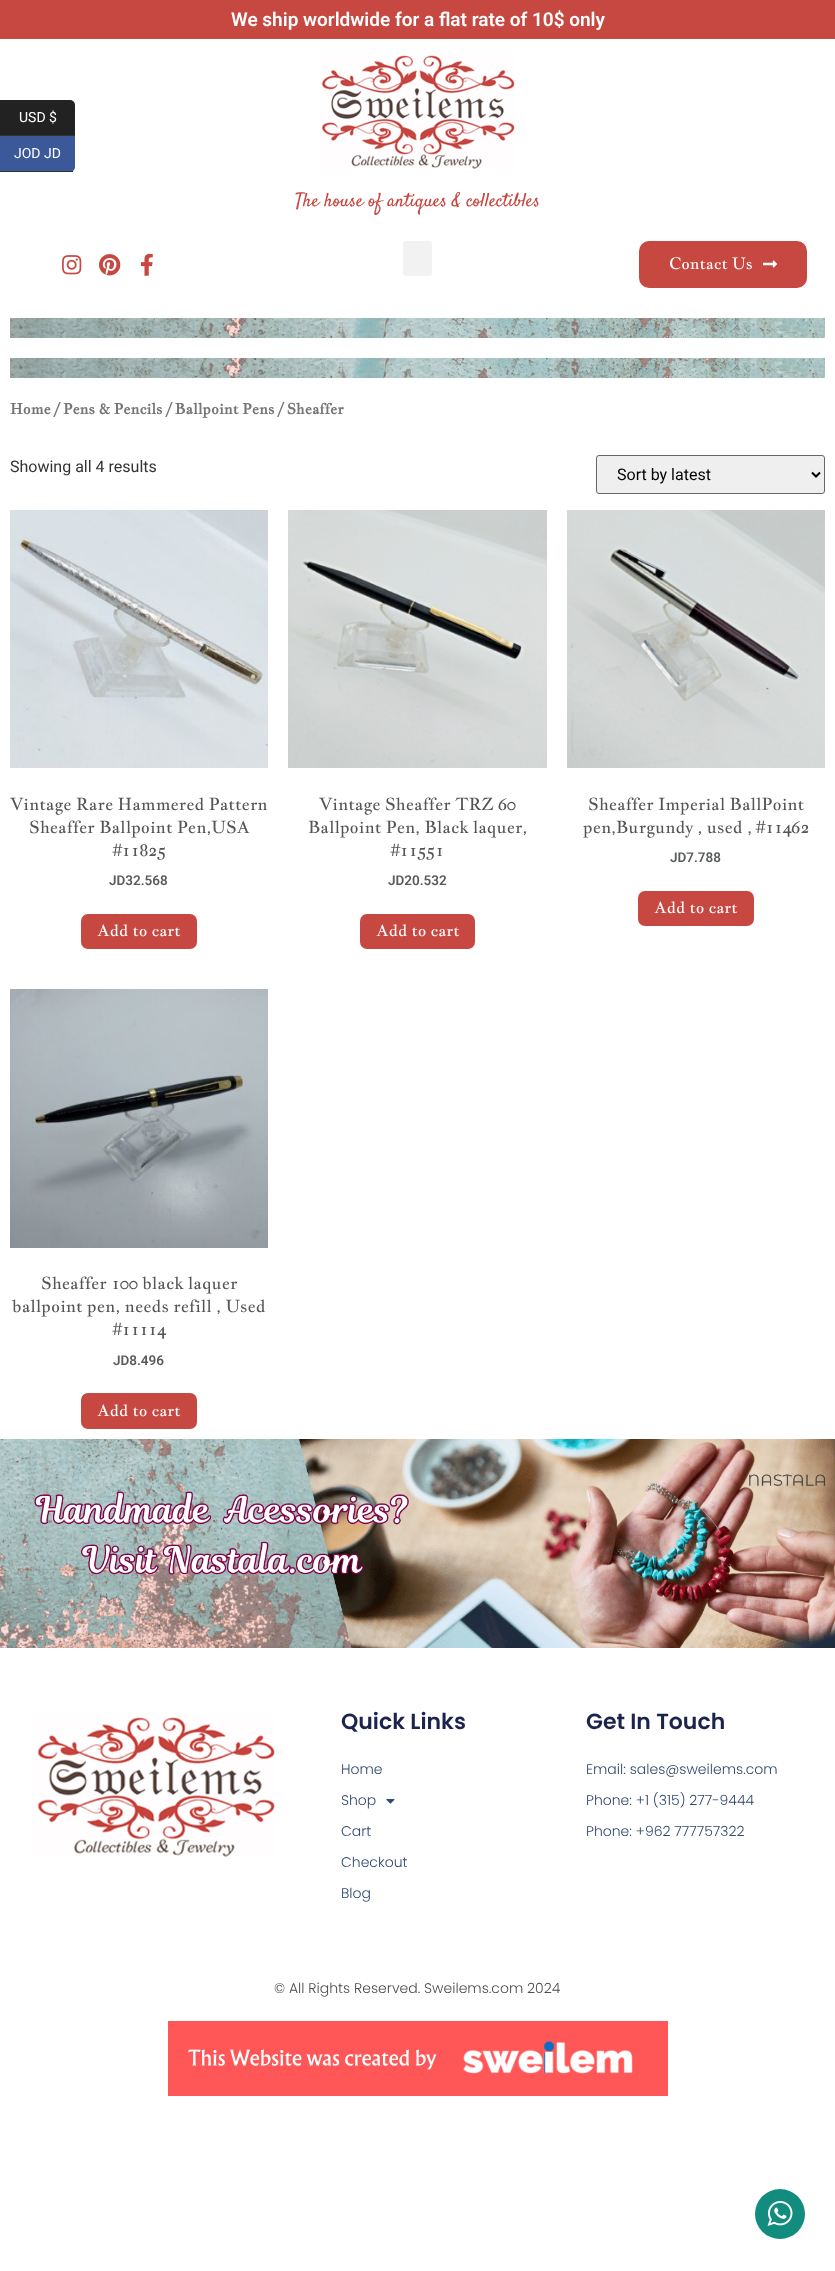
<!DOCTYPE html>
<meta charset="utf-8">
<style>body { margin: 0 } canvas { display: block }</style>
<canvas id="canvas" width="835" height="2271"></canvas>
<script type="module">
  const canvas = document.getElementById("canvas");
  const ctx = canvas.getContext("2d");
  ctx.miterLimit = 4;
  ctx.fontKerning = "normal";
  async function loadImage(src) {
    const img = new Image();
    img.src = src;
    await img.decode();
    return img;
  }

  ctx.fillStyle = "#ffffff";
  ctx.fillRect(0, 0, 835, 2271);
  ctx.fillStyle = "#222222";
  ctx.beginPath();
  ctx.roundRect(0, 100, 75, 36, [0, 5, 0, 0]);
  ctx.fill();
  ctx.fillStyle = "#333333";
  ctx.fillRect(0, 135, 75, 1);
  ctx.font = "14px Roboto";
  ctx.fillStyle = "#ffffff";
  ctx.fillText("USD $", 19, 122);
  ctx.fillStyle = "#3b5998";
  ctx.beginPath();
  ctx.roundRect(0, 136, 75, 36, [0, 0, 5, 0]);
  ctx.fill();
  ctx.fillStyle = "#333333";
  ctx.fillRect(0, 171, 73, 1);
  ctx.fillStyle = "#ffffff";
  ctx.fillText("JOD JD", 14, 158);
  ctx.fillStyle = "#c64841";
  ctx.fillRect(0, 0, 835, 39);
  ctx.font = "600 19px Roboto";
  ctx.fillStyle = "#ffffff";
  ctx.fillText("We ship worldwide for a flat rate of 10$ only", 231, 26);
  ctx.drawImage(await loadImage("img1.png"), 321, 55, 194, 114);
  ctx.font = "19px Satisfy";
  ctx.fillStyle = "#c64841";
  ctx.fillText("The house of antiques & collectibles", 295, 206);
  ctx.drawImage(await loadImage("img2.png"), 62, 255, 20, 20);
  ctx.drawImage(await loadImage("img3.png"), 99, 254, 22, 22);
  ctx.drawImage(await loadImage("img4.png"), 141, 254, 12, 22);
  ctx.fillStyle = "#f2f2f2";
  ctx.beginPath();
  ctx.roundRect(403, 241, 29, 35, 3);
  ctx.fill();
  ctx.fillStyle = "#c64841";
  ctx.beginPath();
  ctx.roundRect(639, 241, 168, 47, 10);
  ctx.fill();
  ctx.font = "16px Jacques Francois";
  ctx.fillStyle = "#ffffff";
  ctx.fillText("Contact Us", 669, 269);
  ctx.drawImage(await loadImage("img5.png"), 763, 260, 14, 8);
  ctx.drawImage(await loadImage("img6.png"), 10, 318, 815, 20);
  ctx.drawImage(await loadImage("img6.png"), 10, 358, 815, 20);
  ctx.font = "bold 14.75px Jacques Francois";
  ctx.fillStyle = "#767676";
  ctx.fillText("Home / Pens & Pencils / Ballpoint Pens / Sheaffer", 10, 414);
  ctx.font = "16px Roboto";
  ctx.fillStyle = "#333333";
  ctx.fillText("Showing all 4 results", 10, 472);
  ctx.fillStyle = "#efefef";
  ctx.beginPath();
  ctx.roundRect(596.5, 455.5, 228, 38, 2.5);
  ctx.fill();
  ctx.strokeStyle = "#666666";
  ctx.stroke();
  ctx.beginPath();
  ctx.moveTo(812, 472.5);
  ctx.lineTo(816, 476.5);
  ctx.lineTo(820, 472.5);
  ctx.strokeStyle = "#000000";
  ctx.lineWidth = 2;
  ctx.stroke();
  ctx.fillStyle = "#000000";
  ctx.fillText("Sort by latest", 617, 480);
  ctx.drawImage(await loadImage("img7.png"), 10, 510, 258, 258);
  ctx.font = "17px Jacques Francois";
  ctx.fillStyle = "#535556";
  ctx.fillText("Vintage Rare Hammered Pattern", 10, 810);
  ctx.fillText("Sheaffer Ballpoint Pen,USA", 29, 833);
  ctx.fillText("#11825", 113, 856);
  ctx.font = "600 13.5px Roboto";
  ctx.fillStyle = "#585b5c";
  ctx.fillText("JD32.568", 109, 885);
  ctx.fillStyle = "#c64841";
  ctx.beginPath();
  ctx.roundRect(81, 914, 116, 35, 7);
  ctx.fill();
  ctx.font = "16px Jacques Francois";
  ctx.fillStyle = "#ffffff";
  ctx.fillText("Add to cart", 97, 936);
  ctx.drawImage(await loadImage("img8.png"), 288, 510, 259, 258);
  ctx.font = "17px Jacques Francois";
  ctx.fillStyle = "#535556";
  ctx.fillText("Vintage Sheaffer TRZ 60", 319, 810);
  ctx.fillText("Ballpoint Pen, Black laquer,", 308, 833);
  ctx.fillText("#11551", 391, 856);
  ctx.font = "600 13.5px Roboto";
  ctx.fillStyle = "#585b5c";
  ctx.fillText("JD20.532", 388, 885);
  ctx.fillStyle = "#c64841";
  ctx.beginPath();
  ctx.roundRect(360, 914, 115, 35, 7);
  ctx.fill();
  ctx.font = "16px Jacques Francois";
  ctx.fillStyle = "#ffffff";
  ctx.fillText("Add to cart", 376, 936);
  ctx.drawImage(await loadImage("img9.png"), 567, 510, 258, 258);
  ctx.font = "17px Jacques Francois";
  ctx.fillStyle = "#535556";
  ctx.fillText("Sheaffer Imperial BallPoint", 588, 810);
  ctx.fillText("pen,Burgundy , used , #11462", 583, 833);
  ctx.font = "600 13.5px Roboto";
  ctx.fillStyle = "#585b5c";
  ctx.fillText("JD7.788", 670, 862);
  ctx.fillStyle = "#c64841";
  ctx.beginPath();
  ctx.roundRect(638, 891, 116, 35, 7);
  ctx.fill();
  ctx.font = "16px Jacques Francois";
  ctx.fillStyle = "#ffffff";
  ctx.fillText("Add to cart", 654, 913);
  ctx.drawImage(await loadImage("img10.png"), 10, 989, 258, 259);
  ctx.font = "17px Jacques Francois";
  ctx.fillStyle = "#535556";
  ctx.fillText("Sheaffer 100 black laquer", 41, 1289);
  ctx.fillText("ballpoint pen, needs refill , Used", 12, 1312);
  ctx.fillText("#11114", 113, 1335);
  ctx.font = "600 13.5px Roboto";
  ctx.fillStyle = "#585b5c";
  ctx.fillText("JD8.496", 113, 1365);
  ctx.fillStyle = "#c64841";
  ctx.beginPath();
  ctx.roundRect(81, 1393, 116, 36, 7);
  ctx.fill();
  ctx.font = "16px Jacques Francois";
  ctx.fillStyle = "#ffffff";
  ctx.fillText("Add to cart", 97, 1416);
  ctx.drawImage(await loadImage("img11.png"), 0, 1439, 835, 209);
  ctx.drawImage(await loadImage("img12.png"), 37, 1717, 238, 140);
  ctx.font = "600 22px Poppins";
  ctx.fillStyle = "#1c244b";
  ctx.fillText("Quick Links", 341, 1729);
  ctx.font = "300 14px Poppins";
  ctx.fillStyle = "#324a6d";
  ctx.fillText("Home", 341, 1774);
  ctx.fillText("Shop", 341, 1805);
  ctx.drawImage(await loadImage("img13.png"), 386, 1799, 9, 5);
  ctx.fillText("Cart", 341, 1836);
  ctx.fillText("Checkout", 341, 1867);
  ctx.fillText("Blog", 341, 1898);
  ctx.font = "600 22px Poppins";
  ctx.fillStyle = "#1c244b";
  ctx.fillText("Get In Touch", 586, 1729);
  ctx.font = "300 14px Poppins";
  ctx.fillStyle = "#324a6d";
  ctx.fillText("Email: sales@sweilems.com", 586, 1774);
  ctx.fillText("Phone: +1 (315) 277-9444", 586, 1805);
  ctx.fillText("Phone: +962 777757322", 586, 1836);
  ctx.fillStyle = "#4c4d4d";
  ctx.fillText("© All Rights Reserved. Sweilems.com 2024", 274, 1993);
  ctx.drawImage(await loadImage("img14.png"), 168, 2021, 500, 75);
  ctx.fillStyle = "#118c7e";
  ctx.beginPath();
  ctx.arc(780, 2214, 25, 0, Math.PI * 2);
  ctx.fill();
  ctx.drawImage(await loadImage("img15.png"), 767, 2201, 26, 25);
</script>
